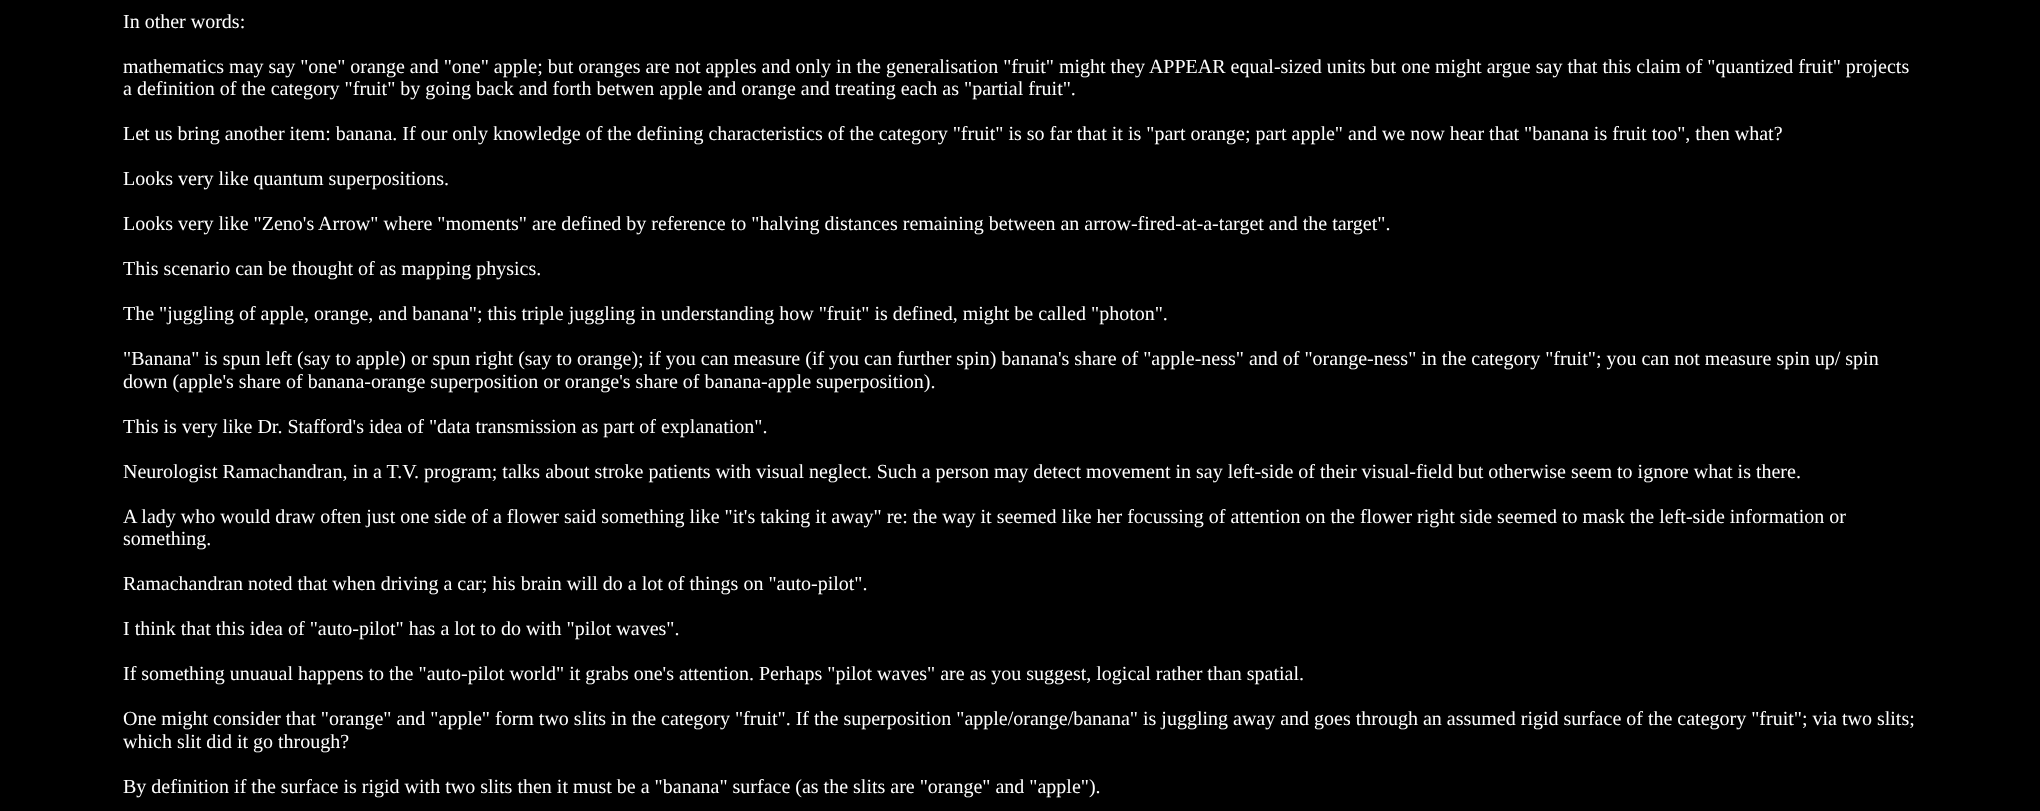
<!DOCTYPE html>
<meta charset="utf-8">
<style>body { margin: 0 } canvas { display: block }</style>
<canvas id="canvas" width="2040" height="811"></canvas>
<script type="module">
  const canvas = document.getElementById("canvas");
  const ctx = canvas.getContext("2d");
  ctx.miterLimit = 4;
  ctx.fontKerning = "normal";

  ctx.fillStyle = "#000000";
  ctx.fillRect(0, 0, 2040, 811);
  ctx.font = "20px Liberation Serif";
  ctx.fillStyle = "#ffffff";
  ctx.fillText("In other words:", 123, 28);
  ctx.fillText("mathematics may say \"one\" orange and \"one\" apple; but oranges are not apples and only in the generalisation \"fruit\" might they APPEAR equal-sized units but one might argue say that this claim of \"quantized fruit\" projects", 123, 73);
  ctx.fillText("a definition of the category \"fruit\" by going back and forth betwen apple and orange and treating each as \"partial fruit\".", 123, 95);
  ctx.fillText("Let us bring another item: banana. If our only knowledge of the defining characteristics of the category \"fruit\" is so far that it is \"part orange; part apple\" and we now hear that \"banana is fruit too\", then what?", 123, 140);
  ctx.fillText("Looks very like quantum superpositions.", 123, 185);
  ctx.fillText("Looks very like \"Zeno's Arrow\" where \"moments\" are defined by reference to \"halving distances remaining between an arrow-fired-at-a-target and the target\".", 123, 230);
  ctx.fillText("This scenario can be thought of as mapping physics.", 123, 275);
  ctx.fillText("The \"juggling of apple, orange, and banana\"; this triple juggling in understanding how \"fruit\" is defined, might be called \"photon\".", 123, 320);
  ctx.fillText("\"Banana\" is spun left (say to apple) or spun right (say to orange); if you can measure (if you can further spin) banana's share of \"apple-ness\" and of \"orange-ness\" in the category \"fruit\"; you can not measure spin up/ spin", 123, 365);
  ctx.fillText("down (apple's share of banana-orange superposition or orange's share of banana-apple superposition).", 123, 388);
  ctx.fillText("This is very like Dr. Stafford's idea of \"data transmission as part of explanation\".", 123, 433);
  ctx.fillText("Neurologist Ramachandran, in a T.V. program; talks about stroke patients with visual neglect. Such a person may detect movement in say left-side of their visual-field but otherwise seem to ignore what is there.", 123, 478);
  ctx.fillText("A lady who would draw often just one side of a flower said something like \"it's taking it away\" re: the way it seemed like her focussing of attention on the flower right side seemed to mask the left-side information or", 123, 523);
  ctx.fillText("something.", 123, 545);
  ctx.fillText("Ramachandran noted that when driving a car; his brain will do a lot of things on \"auto-pilot\".", 123, 590);
  ctx.fillText("I think that this idea of \"auto-pilot\" has a lot to do with \"pilot waves\".", 123, 635);
  ctx.fillText("If something unuaual happens to the \"auto-pilot world\" it grabs one's attention. Perhaps \"pilot waves\" are as you suggest, logical rather than spatial.", 123, 680);
  ctx.fillText("One might consider that \"orange\" and \"apple\" form two slits in the category \"fruit\". If the superposition \"apple/orange/banana\" is juggling away and goes through an assumed rigid surface of the category \"fruit\"; via two slits;", 123, 725);
  ctx.fillText("which slit did it go through?", 123, 748);
  ctx.fillText("By definition if the surface is rigid with two slits then it must be a \"banana\" surface (as the slits are \"orange\" and \"apple\").", 123, 793);
</script>
